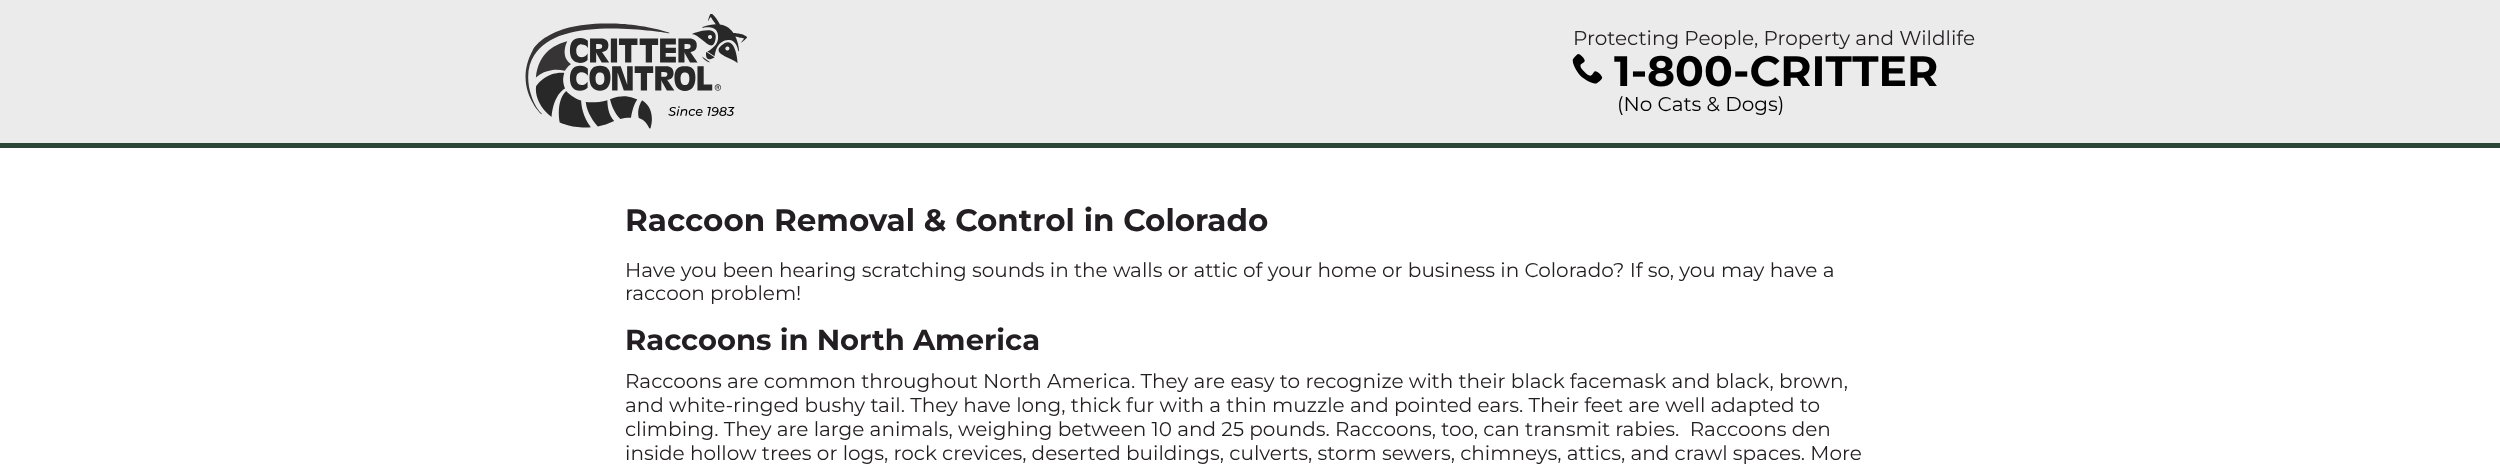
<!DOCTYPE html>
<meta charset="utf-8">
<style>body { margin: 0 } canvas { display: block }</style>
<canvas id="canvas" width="2500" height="470"></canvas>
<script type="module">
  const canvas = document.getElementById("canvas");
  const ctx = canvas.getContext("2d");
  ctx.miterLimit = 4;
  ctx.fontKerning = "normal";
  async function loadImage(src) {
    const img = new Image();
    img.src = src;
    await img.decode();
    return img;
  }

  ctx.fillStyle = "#ffffff";
  ctx.fillRect(0, 0, 2500, 470);
  ctx.fillStyle = "#ebebeb";
  ctx.fillRect(0, 0, 2500, 143);
  ctx.fillStyle = "#2a4634";
  ctx.fillRect(0, 143, 2500, 5);
  ctx.drawImage(await loadImage("img1.png"), 525, 14, 222, 115);
  ctx.font = "20px Montserrat";
  ctx.fillStyle = "#221e21";
  ctx.fillText("Protecting People, Property and Wildlife", 1573, 45);
  ctx.drawImage(await loadImage("img2.png"), 1572, 54, 31, 30);
  ctx.font = "bold 42.5px Montserrat";
  ctx.fillStyle = "#000000";
  ctx.fillText("1-800-CRITTER", 1614, 86);
  ctx.font = "20px Montserrat";
  ctx.fillText("(No Cats & Dogs)", 1617, 111);
  ctx.font = "bold 31px Montserrat";
  ctx.fillStyle = "#221e21";
  ctx.fillText("Raccoon Removal & Control in Colorado", 625, 231);
  ctx.font = "20px Montserrat";
  ctx.fillText("Have you been hearing scratching sounds in the walls or attic of your home or business in Colorado? If so, you may have a", 625, 277);
  ctx.fillText("raccoon problem!", 625, 300);
  ctx.font = "bold 29px Montserrat";
  ctx.fillText("Raccoons in North America", 625, 350);
  ctx.font = "20px Montserrat";
  ctx.fillText("Raccoons are common throughout North America. They are easy to recognize with their black facemask and black, brown,", 625, 388);
  ctx.fillText("and white-ringed bushy tail. They have long, thick fur with a thin muzzle and pointed ears. Their feet are well adapted to", 625, 412);
  ctx.fillText("climbing. They are large animals, weighing between 10 and 25 pounds. Raccoons, too, can transmit rabies.  Raccoons den", 625, 436);
  ctx.fillText("inside hollow trees or logs, rock crevices, deserted buildings, culverts, storm sewers, chimneys, attics, and crawl spaces. More", 625, 460);
</script>
